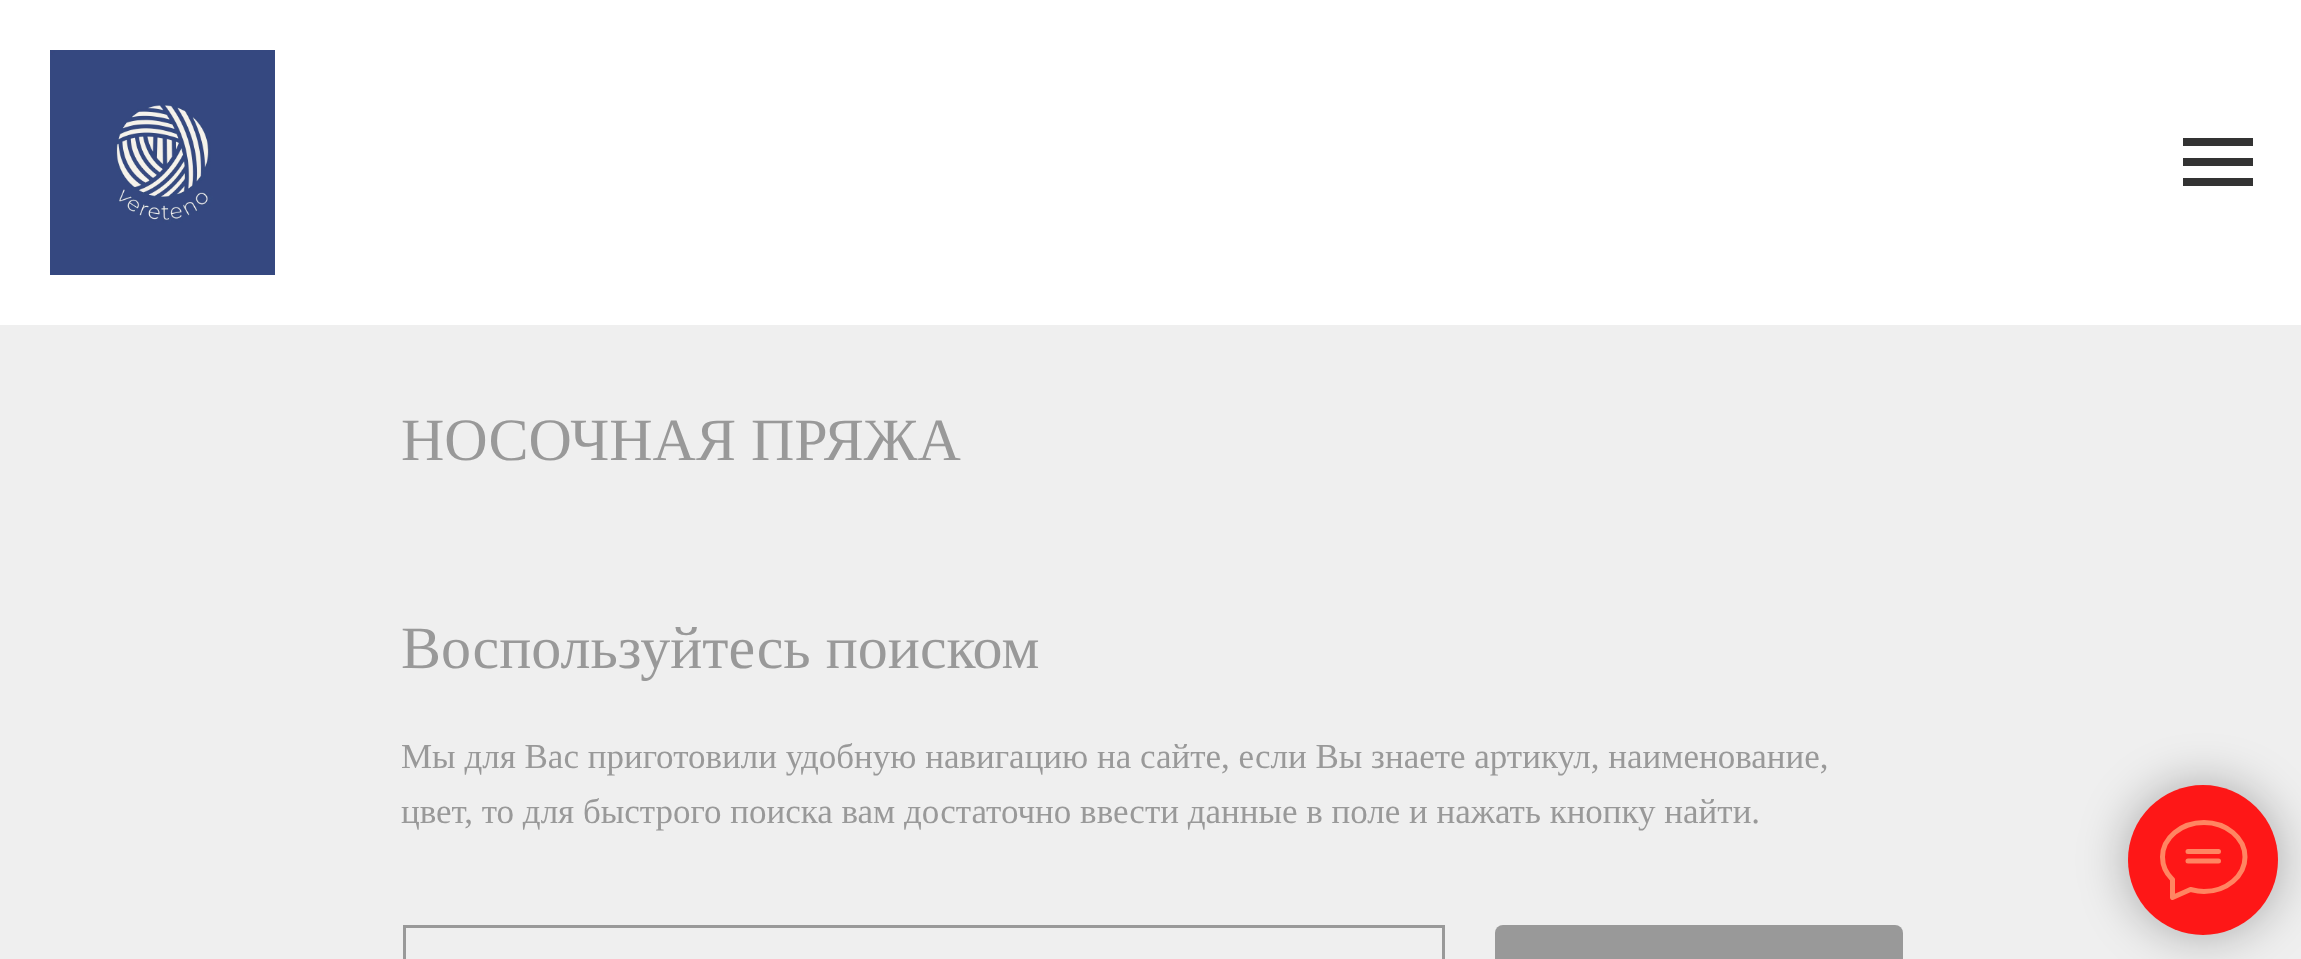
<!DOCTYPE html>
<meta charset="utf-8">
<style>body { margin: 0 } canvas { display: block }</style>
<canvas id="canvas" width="2301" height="959"></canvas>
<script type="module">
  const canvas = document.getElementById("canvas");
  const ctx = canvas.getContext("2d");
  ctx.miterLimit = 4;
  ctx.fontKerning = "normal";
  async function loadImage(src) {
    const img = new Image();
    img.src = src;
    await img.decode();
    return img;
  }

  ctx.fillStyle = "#ffffff";
  ctx.fillRect(0, 0, 2301, 959);
  ctx.drawImage(await loadImage("img1.png"), 50, 50, 225, 225);
  ctx.fillStyle = "#333333";
  ctx.fillRect(2183, 138, 70, 8);
  ctx.fillRect(2183, 158, 70, 8);
  ctx.fillRect(2183, 178, 70, 8);
  ctx.fillStyle = "#efefef";
  ctx.fillRect(0, 325, 2301, 634);
  ctx.font = "60px Liberation Serif";
  ctx.fillStyle = "#999999";
  ctx.fillText("НОСОЧНАЯ ПРЯЖА", 401, 460);
  ctx.fillText("Воспользуйтесь поиском", 401, 668);
  ctx.font = "35px Liberation Serif";
  ctx.fillText("Мы для Вас приготовили удобную навигацию на сайте, если Вы знаете артикул, наименование,", 401, 768);
  ctx.fillText("цвет, то для быстрого поиска вам достаточно ввести данные в поле и нажать кнопку найти.", 401, 823);
  ctx.fillStyle = "rgba(0, 0, 0, 0.3)";
  ctx.filter = "blur(25px)";
  ctx.beginPath();
  ctx.roundRect(2128, 785, 150, 150, 75);
  ctx.fill();
  ctx.filter = "none";
  ctx.fillStyle = "#fe1717";
  ctx.beginPath();
  ctx.arc(2203, 860, 75, 0, Math.PI * 2);
  ctx.fill();
  ctx.beginPath();
  ctx.moveTo(2188, 851.5);
  ctx.lineTo(2218.5, 851.5);
  ctx.moveTo(2188, 861);
  ctx.lineTo(2218.5, 861);
  ctx.moveTo(2172, 879);
  ctx.bezierCurveTo(2166, 873, 2162.5, 865.5, 2162.5, 857);
  ctx.bezierCurveTo(2162.5, 838, 2181, 822.5, 2204, 822.5);
  ctx.bezierCurveTo(2226.5, 822.5, 2245, 838, 2245, 857);
  ctx.bezierCurveTo(2245, 876, 2226.5, 891.5, 2204, 891.5);
  ctx.bezierCurveTo(2199, 891.5, 2194.5, 890.5, 2190.5, 889.5);
  ctx.lineTo(2172.5, 897.5);
  ctx.lineTo(2172.5, 879.5);
  ctx.closePath();
  ctx.strokeStyle = "#ff8562";
  ctx.lineWidth = 5;
  ctx.lineCap = "round";
  ctx.lineJoin = "round";
  ctx.stroke();
  ctx.strokeStyle = "#999999";
  ctx.lineWidth = 3;
  ctx.lineJoin = "miter";
  ctx.strokeRect(404.5, 926.5, 1039, 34);
  ctx.fillStyle = "#999999";
  ctx.beginPath();
  ctx.roundRect(1495, 925, 408, 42, 8);
  ctx.fill();
</script>
